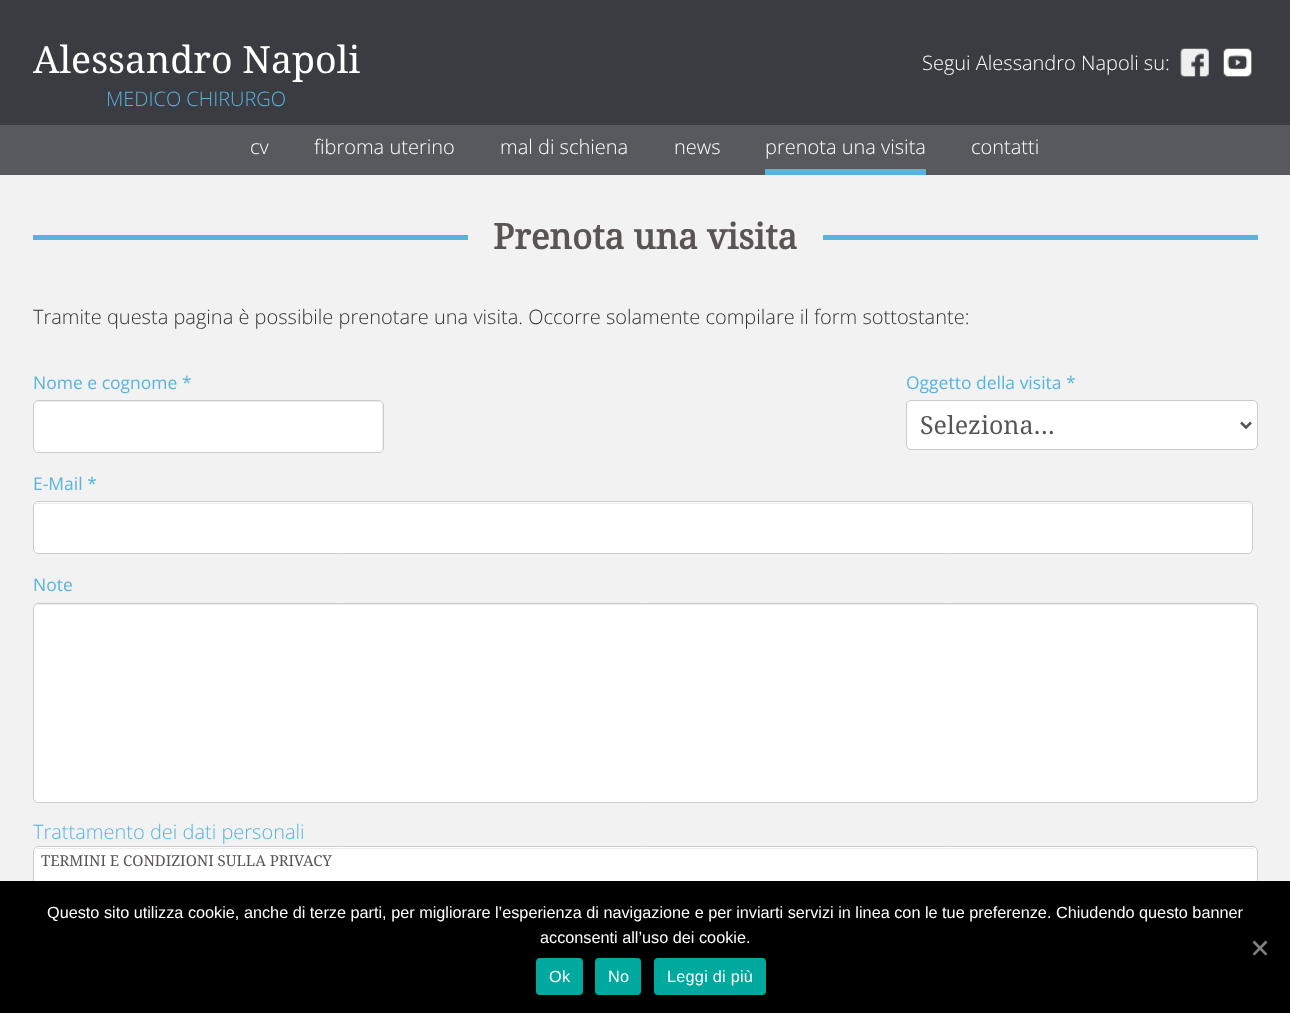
<!DOCTYPE html>
<meta charset="utf-8">
<style>body { margin: 0 } canvas { display: block }</style>
<canvas id="canvas" width="1290" height="1013"></canvas>
<script type="module">
  const canvas = document.getElementById("canvas");
  const ctx = canvas.getContext("2d");
  ctx.miterLimit = 4;
  ctx.fontKerning = "normal";
  async function loadImage(src) {
    const img = new Image();
    img.src = src;
    await img.decode();
    return img;
  }

  ctx.fillStyle = "#f2f2f2";
  ctx.fillRect(0, 0, 1290, 1013);
  ctx.fillStyle = "#3b3c41";
  ctx.fillRect(0, 0, 1290, 125);
  ctx.font = "37.5px Droid Serif";
  ctx.fillStyle = "#ffffff";
  ctx.fillText("Alessandro Napoli", 33, 73);
  ctx.font = "300 20px Open Sans";
  ctx.fillStyle = "#58b4dd";
  ctx.fillText("MEDICO CHIRURGO", 106, 106);
  ctx.fillStyle = "#ffffff";
  ctx.fillText("Segui Alessandro Napoli su:", 922, 70);
  ctx.drawImage(await loadImage("img1.png"), 1180, 48, 29, 29);
  ctx.drawImage(await loadImage("img2.png"), 1223, 48, 29, 29);
  ctx.fillStyle = "#57595e";
  ctx.fillRect(0, 125, 1290, 50);
  ctx.fillStyle = "#ffffff";
  ctx.fillText("cv", 250, 154);
  ctx.fillText("fibroma uterino", 314, 154);
  ctx.fillText("mal di schiena", 500, 154);
  ctx.fillText("news", 674, 154);
  ctx.fillStyle = "#58b4dd";
  ctx.fillRect(765, 169, 161, 6);
  ctx.fillStyle = "#ffffff";
  ctx.fillText("prenota una visita", 765, 154);
  ctx.fillText("contatti", 971, 154);
  ctx.fillStyle = "#58b4dd";
  ctx.fillRect(33, 235, 1225, 5);
  ctx.fillStyle = "#f2f2f2";
  ctx.fillRect(468, 235, 355, 5);
  ctx.font = "bold 35px Droid Serif";
  ctx.fillStyle = "#5a5555";
  ctx.fillText("Prenota una visita", 493, 249);
  ctx.font = "300 20px Open Sans";
  ctx.fillStyle = "#333333";
  ctx.fillText("Tramite questa pagina è possibile prenotare una visita. Occorre solamente compilare il form sottostante:", 33, 324);
  ctx.font = "17.5px Open Sans";
  ctx.fillStyle = "#58b4dd";
  ctx.fillText("Nome e cognome *", 33, 389);
  ctx.fillStyle = "#ffffff";
  ctx.beginPath();
  ctx.roundRect(33, 400, 351, 53, 5);
  ctx.fill();
  ctx.fillStyle = "#ececec";
  ctx.beginPath();
  ctx.moveTo(38, 402);
  ctx.lineTo(379, 402);
  ctx.bezierCurveTo(381, 402, 382, 404, 382, 406);
  ctx.lineTo(382, 450);
  ctx.bezierCurveTo(383, 449, 383, 448, 383, 447);
  ctx.lineTo(383, 405);
  ctx.bezierCurveTo(383, 403, 381, 401, 379, 401);
  ctx.lineTo(38, 401);
  ctx.bezierCurveTo(36, 401, 34, 403, 34, 405);
  ctx.lineTo(34, 406);
  ctx.bezierCurveTo(34, 404, 35, 402, 38, 402);
  ctx.closePath();
  ctx.fill();
  ctx.beginPath();
  ctx.roundRect(33.5, 400.5, 350, 52, 4.5);
  ctx.strokeStyle = "#cccccc";
  ctx.stroke();
  ctx.fillStyle = "#58b4dd";
  ctx.fillText("Oggetto della visita *", 906, 389);
  ctx.fillStyle = "#ffffff";
  ctx.beginPath();
  ctx.roundRect(906.5, 400.5, 351, 49, 4.5);
  ctx.fill();
  ctx.stroke();
  ctx.beginPath();
  ctx.moveTo(1241, 422.5);
  ctx.lineTo(1246, 427.5);
  ctx.lineTo(1251, 422.5);
  ctx.strokeStyle = "#555555";
  ctx.lineWidth = 2.5;
  ctx.stroke();
  ctx.font = "25px Droid Serif";
  ctx.fillStyle = "#5a5555";
  ctx.fillText("Seleziona...", 920, 434);
  ctx.font = "17.5px Open Sans";
  ctx.fillStyle = "#58b4dd";
  ctx.fillText("E-Mail *", 33, 490);
  ctx.fillStyle = "#ffffff";
  ctx.beginPath();
  ctx.roundRect(33, 501, 1220, 53, 5);
  ctx.fill();
  ctx.fillStyle = "#ececec";
  ctx.beginPath();
  ctx.moveTo(38, 504);
  ctx.lineTo(1248, 504);
  ctx.bezierCurveTo(1250, 504, 1251, 505, 1251, 508);
  ctx.bezierCurveTo(1251, 505, 1250, 503, 1247, 503);
  ctx.lineTo(38, 503);
  ctx.bezierCurveTo(35, 503, 34, 505, 34, 508);
  ctx.bezierCurveTo(34, 505, 35, 504, 38, 504);
  ctx.closePath();
  ctx.fill();
  ctx.beginPath();
  ctx.roundRect(33.5, 501.5, 1219, 52, 4.5);
  ctx.strokeStyle = "#cccccc";
  ctx.lineWidth = 1;
  ctx.stroke();
  ctx.fillStyle = "#58b4dd";
  ctx.fillText("Note", 33, 591);
  ctx.fillStyle = "#ffffff";
  ctx.beginPath();
  ctx.roundRect(33, 603, 1225, 200, 5);
  ctx.fill();
  ctx.fillStyle = "#ececec";
  ctx.beginPath();
  ctx.moveTo(38, 605);
  ctx.lineTo(1252, 605);
  ctx.bezierCurveTo(1255, 605, 1256, 607, 1256, 609);
  ctx.bezierCurveTo(1256, 606, 1255, 604, 1252, 604);
  ctx.lineTo(38, 604);
  ctx.bezierCurveTo(35, 604, 34, 606, 34, 609);
  ctx.bezierCurveTo(34, 607, 35, 605, 38, 605);
  ctx.closePath();
  ctx.fill();
  ctx.beginPath();
  ctx.roundRect(33.5, 603.5, 1224, 199, 4.5);
  ctx.stroke();
  ctx.font = "300 20px Open Sans";
  ctx.fillStyle = "#58b4dd";
  ctx.fillText("Trattamento dei dati personali", 33, 839);
  ctx.fillStyle = "#ffffff";
  ctx.beginPath();
  ctx.roundRect(33, 846, 1225, 82, 5);
  ctx.fill();
  ctx.fillStyle = "#ececec";
  ctx.beginPath();
  ctx.moveTo(38, 849);
  ctx.lineTo(1252, 849);
  ctx.bezierCurveTo(1254, 849, 1255, 849, 1256, 850);
  ctx.bezierCurveTo(1255, 849, 1254, 848, 1252, 848);
  ctx.lineTo(38, 848);
  ctx.bezierCurveTo(36, 848, 35, 849, 34, 850);
  ctx.bezierCurveTo(35, 849, 36, 849, 38, 849);
  ctx.closePath();
  ctx.fill();
  ctx.beginPath();
  ctx.roundRect(33.5, 846.5, 1224, 81, 4.5);
  ctx.stroke();
  ctx.font = "15px Droid Serif";
  ctx.fillStyle = "#5a5555";
  ctx.fillText("TERMINI E CONDIZIONI SULLA PRIVACY", 41, 866);
  ctx.fillStyle = "#000000";
  ctx.fillRect(0, 881, 1290, 132);
  ctx.font = "16.25px Liberation Sans";
  ctx.fillStyle = "#ffffff";
  ctx.fillText("Questo sito utilizza cookie, anche di terze parti, per migliorare l’esperienza di navigazione e per inviarti servizi in linea con le tue preferenze. Chiudendo questo banner", 47, 918);
  ctx.fillText("acconsenti all’uso dei cookie.", 540, 943);
  ctx.fillStyle = "#808080";
  ctx.beginPath();
  ctx.moveTo(1265.5, 940.5);
  ctx.lineTo(1267.5, 942.5);
  ctx.lineTo(1254.5, 955.5);
  ctx.lineTo(1252.5, 954);
  ctx.closePath();
  ctx.fill();
  ctx.beginPath();
  ctx.moveTo(1252.5, 942.5);
  ctx.lineTo(1254.5, 940.5);
  ctx.lineTo(1267.5, 954);
  ctx.lineTo(1265.5, 955.5);
  ctx.closePath();
  ctx.fill();
  ctx.fillStyle = "#00a99d";
  ctx.beginPath();
  ctx.roundRect(536, 958, 47, 37, 4);
  ctx.fill();
  ctx.letterSpacing = "0.25px";
  ctx.fillStyle = "#ffffff";
  ctx.fillText("Ok", 549, 982);
  ctx.fillStyle = "#00a99d";
  ctx.beginPath();
  ctx.roundRect(595, 958, 46, 37, 4);
  ctx.fill();
  ctx.fillStyle = "#ffffff";
  ctx.fillText("No", 608, 982);
  ctx.fillStyle = "#00a99d";
  ctx.beginPath();
  ctx.roundRect(654, 958, 112, 37, 4);
  ctx.fill();
  ctx.fillStyle = "#ffffff";
  ctx.fillText("Leggi di più", 667, 982);
</script>
